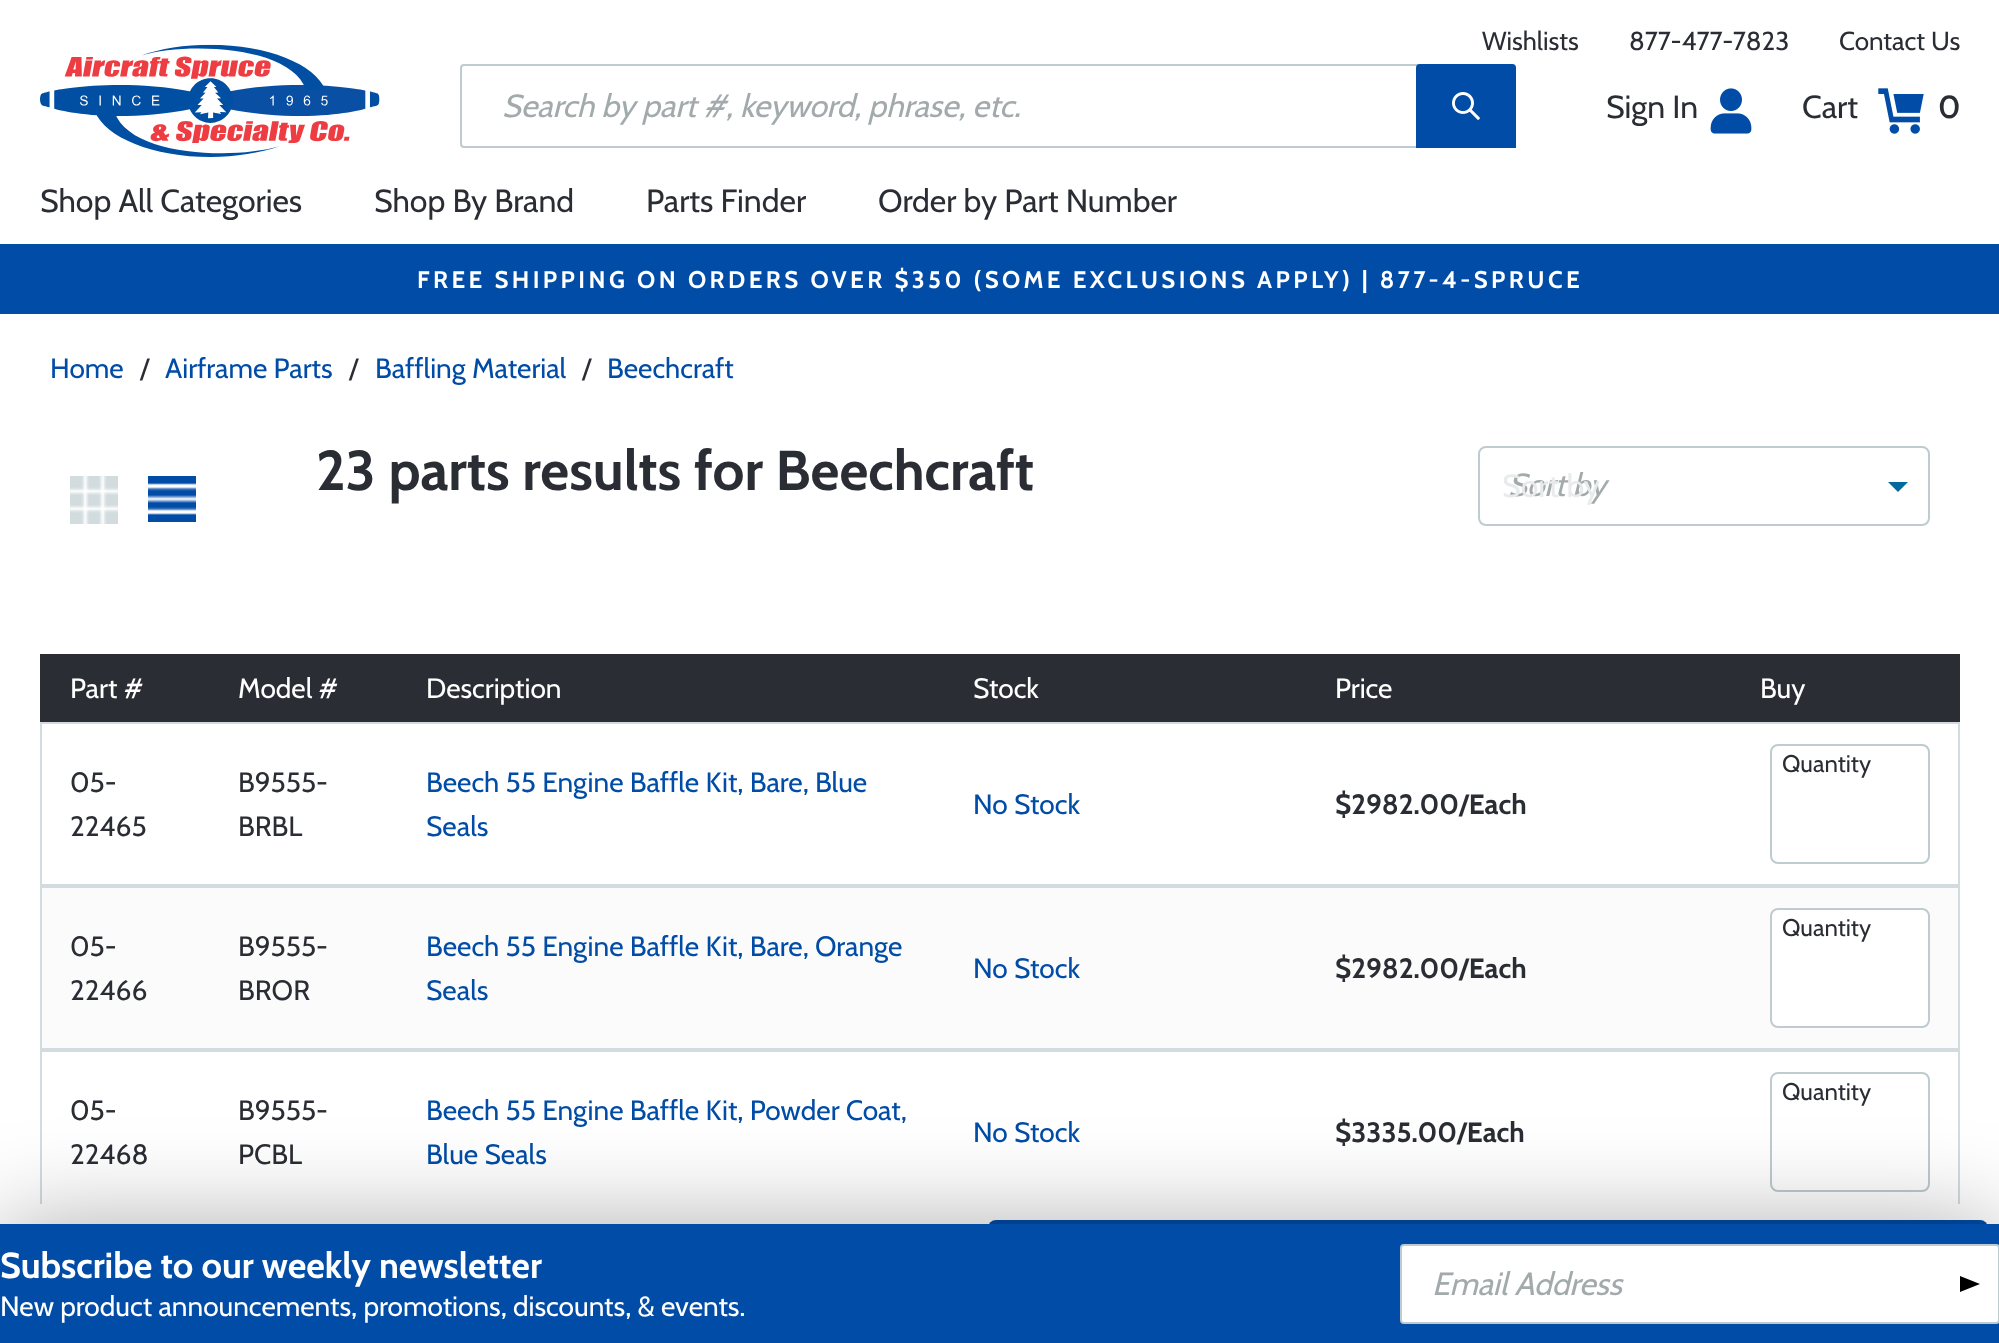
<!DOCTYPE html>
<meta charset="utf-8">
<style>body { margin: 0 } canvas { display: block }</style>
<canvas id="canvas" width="1999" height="1343"></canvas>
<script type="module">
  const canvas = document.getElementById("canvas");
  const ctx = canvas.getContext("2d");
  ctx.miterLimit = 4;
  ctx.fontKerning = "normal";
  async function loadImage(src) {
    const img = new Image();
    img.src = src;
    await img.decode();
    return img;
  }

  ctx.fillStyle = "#ffffff";
  ctx.fillRect(0, 0, 1999, 1343);
  ctx.font = "26px Cabin";
  ctx.fillStyle = "#2a2d34";
  ctx.fillText("Wishlists", 1482, 50);
  ctx.fillText("877-477-7823", 1629, 50);
  ctx.fillText("Contact Us", 1839, 50);
  ctx.drawImage(await loadImage("img1.png"), 40, 44, 340, 113);
  ctx.beginPath();
  ctx.roundRect(461, 65, 1054, 82, 3);
  ctx.strokeStyle = "#becbcf";
  ctx.lineWidth = 2;
  ctx.stroke();
  ctx.font = "italic 32px Cabin";
  ctx.fillStyle = "#a2aaac";
  ctx.fillText("Search by part #, keyword, phrase, etc.", 502, 117);
  ctx.fillStyle = "#004ca6";
  ctx.beginPath();
  ctx.roundRect(1416, 64, 100, 84, [4, 4, 0, 0]);
  ctx.fill();
  ctx.drawImage(await loadImage("img2.png"), 1452, 92, 28, 28);
  ctx.font = "32px Cabin";
  ctx.fillStyle = "#2a2d34";
  ctx.fillText("Sign In", 1606, 118);
  ctx.drawImage(await loadImage("img3.png"), 1710, 88, 42, 46);
  ctx.fillText("Cart", 1802, 118);
  ctx.drawImage(await loadImage("img4.png"), 1878, 88, 46, 46);
  ctx.font = "600 32px Cabin";
  ctx.fillText("0", 1938, 118);
  ctx.font = "32px Cabin";
  ctx.fillText("Shop All Categories", 40, 212);
  ctx.fillText("Shop By Brand", 374, 212);
  ctx.fillText("Parts Finder", 646, 212);
  ctx.fillText("Order by Part Number", 878, 212);
  ctx.fillStyle = "#004ca6";
  ctx.fillRect(0, 244, 1999, 70);
  ctx.letterSpacing = "3.42px";
  ctx.font = "bold 24px Cabin";
  ctx.fillStyle = "#ffffff";
  ctx.fillText("FREE SHIPPING ON ORDERS OVER $350 (SOME EXCLUSIONS APPLY) | 877-4-SPRUCE", 417, 288);
  ctx.letterSpacing = "0px";
  ctx.font = "28px Cabin";
  ctx.fillStyle = "#004ca6";
  ctx.fillText("Home", 50, 378);
  ctx.fillStyle = "#2a2d34";
  ctx.fillText("/", 140, 378);
  ctx.fillStyle = "#004ca6";
  ctx.fillText("Airframe Parts", 165, 378);
  ctx.fillStyle = "#2a2d34";
  ctx.fillText("/", 349, 378);
  ctx.fillStyle = "#004ca6";
  ctx.fillText("Baffling Material", 375, 378);
  ctx.fillStyle = "#2a2d34";
  ctx.fillText("/", 582, 378);
  ctx.fillStyle = "#004ca6";
  ctx.fillText("Beechcraft", 607, 378);
  ctx.drawImage(await loadImage("img5.png"), 70, 476, 48, 48);
  ctx.drawImage(await loadImage("img6.png"), 148, 476, 48, 46);
  ctx.font = "bold 56px Cabin";
  ctx.fillStyle = "#2a2d34";
  ctx.fillText("23 parts results for Beechcraft", 316, 490);
  ctx.beginPath();
  ctx.roundRect(1479, 447, 450, 78, 7);
  ctx.stroke();
  ctx.font = "italic 32px Cabin";
  ctx.fillStyle = "#a2aaac";
  ctx.fillText("Sort by", 1508, 496);
  ctx.font = "32px Cabin";
  ctx.fillStyle = "#e9ebeb";
  ctx.fillText("Sort by", 1502, 497);
  ctx.fillStyle = "#02699e";
  ctx.beginPath();
  ctx.moveTo(1888, 482);
  ctx.lineTo(1908, 482);
  ctx.lineTo(1898, 492);
  ctx.closePath();
  ctx.fill();
  ctx.fillStyle = "#2a2d34";
  ctx.fillRect(40, 654, 1920, 68);
  ctx.font = "28px Cabin";
  ctx.fillStyle = "#ffffff";
  ctx.fillText("Part #", 70, 698);
  ctx.fillText("Model #", 238, 698);
  ctx.fillText("Description", 426, 698);
  ctx.fillText("Stock", 973, 698);
  ctx.fillText("Price", 1335, 698);
  ctx.fillText("Buy", 1760, 698);
  ctx.fillStyle = "#d2dcde";
  ctx.fillRect(40, 722, 1920, 2);
  ctx.fillRect(1958, 722, 2, 164);
  ctx.fillRect(1732, 884, 228, 2);
  ctx.beginPath();
  ctx.roundRect(1771, 745, 158, 118, 7);
  ctx.stroke();
  ctx.font = "24px Cabin";
  ctx.fillStyle = "#2a2d34";
  ctx.fillText("Quantity", 1782, 772);
  ctx.fillStyle = "#d2dcde";
  ctx.fillRect(40, 884, 1692, 2);
  ctx.fillRect(40, 722, 2, 164);
  ctx.font = "28px Cabin";
  ctx.fillStyle = "#2a2d34";
  ctx.fillText("05-", 70, 792);
  ctx.fillText("22465", 70, 836);
  ctx.fillText("B9555-", 238, 792);
  ctx.fillText("BRBL", 238, 836);
  ctx.fillStyle = "#004ca6";
  ctx.fillText("Beech 55 Engine Baffle Kit, Bare, Blue", 426, 792);
  ctx.fillText("Seals", 426, 836);
  ctx.fillText("No Stock", 973, 814);
  ctx.font = "bold 28px Cabin";
  ctx.fillStyle = "#2a2d34";
  ctx.fillText("$2982.00/Each", 1335, 814);
  ctx.fillStyle = "#fbfbfb";
  ctx.fillRect(42, 888, 1916, 160);
  ctx.fillStyle = "#d2dcde";
  ctx.fillRect(40, 886, 1920, 2);
  ctx.fillRect(1958, 886, 2, 164);
  ctx.fillRect(1732, 1048, 228, 2);
  ctx.fillStyle = "#ffffff";
  ctx.beginPath();
  ctx.roundRect(1771, 909, 158, 118, 7);
  ctx.fill();
  ctx.stroke();
  ctx.font = "24px Cabin";
  ctx.fillStyle = "#2a2d34";
  ctx.fillText("Quantity", 1782, 936);
  ctx.fillStyle = "#d2dcde";
  ctx.fillRect(40, 1048, 1692, 2);
  ctx.fillRect(40, 886, 2, 164);
  ctx.font = "28px Cabin";
  ctx.fillStyle = "#2a2d34";
  ctx.fillText("05-", 70, 956);
  ctx.fillText("22466", 70, 1000);
  ctx.fillText("B9555-", 238, 956);
  ctx.fillText("BROR", 238, 1000);
  ctx.fillStyle = "#004ca6";
  ctx.fillText("Beech 55 Engine Baffle Kit, Bare, Orange", 426, 956);
  ctx.fillText("Seals", 426, 1000);
  ctx.fillText("No Stock", 973, 978);
  ctx.font = "bold 28px Cabin";
  ctx.fillStyle = "#2a2d34";
  ctx.fillText("$2982.00/Each", 1335, 978);
  ctx.fillStyle = "#d2dcde";
  ctx.fillRect(40, 1050, 1920, 2);
  ctx.fillRect(1958, 1050, 2, 154);
  ctx.beginPath();
  ctx.roundRect(1771, 1073, 158, 118, 7);
  ctx.stroke();
  ctx.font = "24px Cabin";
  ctx.fillStyle = "#2a2d34";
  ctx.fillText("Quantity", 1782, 1100);
  ctx.fillStyle = "#d2dcde";
  ctx.fillRect(40, 1050, 2, 154);
  ctx.font = "28px Cabin";
  ctx.fillStyle = "#2a2d34";
  ctx.fillText("05-", 70, 1120);
  ctx.fillText("22468", 70, 1164);
  ctx.fillText("B9555-", 238, 1120);
  ctx.fillText("PCBL", 238, 1164);
  ctx.fillStyle = "#004ca6";
  ctx.fillText("Beech 55 Engine Baffle Kit, Powder Coat,", 426, 1120);
  ctx.fillText("Blue Seals", 426, 1164);
  ctx.fillText("No Stock", 973, 1142);
  ctx.font = "bold 28px Cabin";
  ctx.fillStyle = "#2a2d34";
  ctx.fillText("$3335.00/Each", 1335, 1142);
  ctx.fillStyle = "#004ca6";
  ctx.beginPath();
  ctx.roundRect(988, 1220, 1000, 108, 8);
  ctx.fill();
  ctx.fillStyle = "rgba(0, 0, 0, 0.34)";
  ctx.filter = "blur(50px)";
  ctx.beginPath();
  ctx.rect(0, 1228, 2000, 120);
  ctx.fill();
  ctx.filter = "none";
  ctx.fillStyle = "#004ca6";
  ctx.fillRect(0, 1224, 1999, 119);
  ctx.font = "bold 36px Cabin";
  ctx.fillStyle = "#ffffff";
  ctx.fillText("Subscribe to our weekly newsletter", 0, 1278);
  ctx.font = "28px Cabin";
  ctx.fillText("New product announcements, promotions, discounts, & events.", 0, 1316);
  ctx.beginPath();
  ctx.roundRect(1401, 1245, 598, 78, 3);
  ctx.fill();
  ctx.stroke();
  ctx.font = "italic 32px Cabin";
  ctx.fillStyle = "#a2aaac";
  ctx.fillText("Email Address", 1432, 1295);
  ctx.fillStyle = "#000000";
  ctx.beginPath();
  ctx.moveTo(1960, 1292);
  ctx.lineTo(1960, 1276);
  ctx.lineTo(1980, 1284);
  ctx.closePath();
  ctx.fill();
</script>
